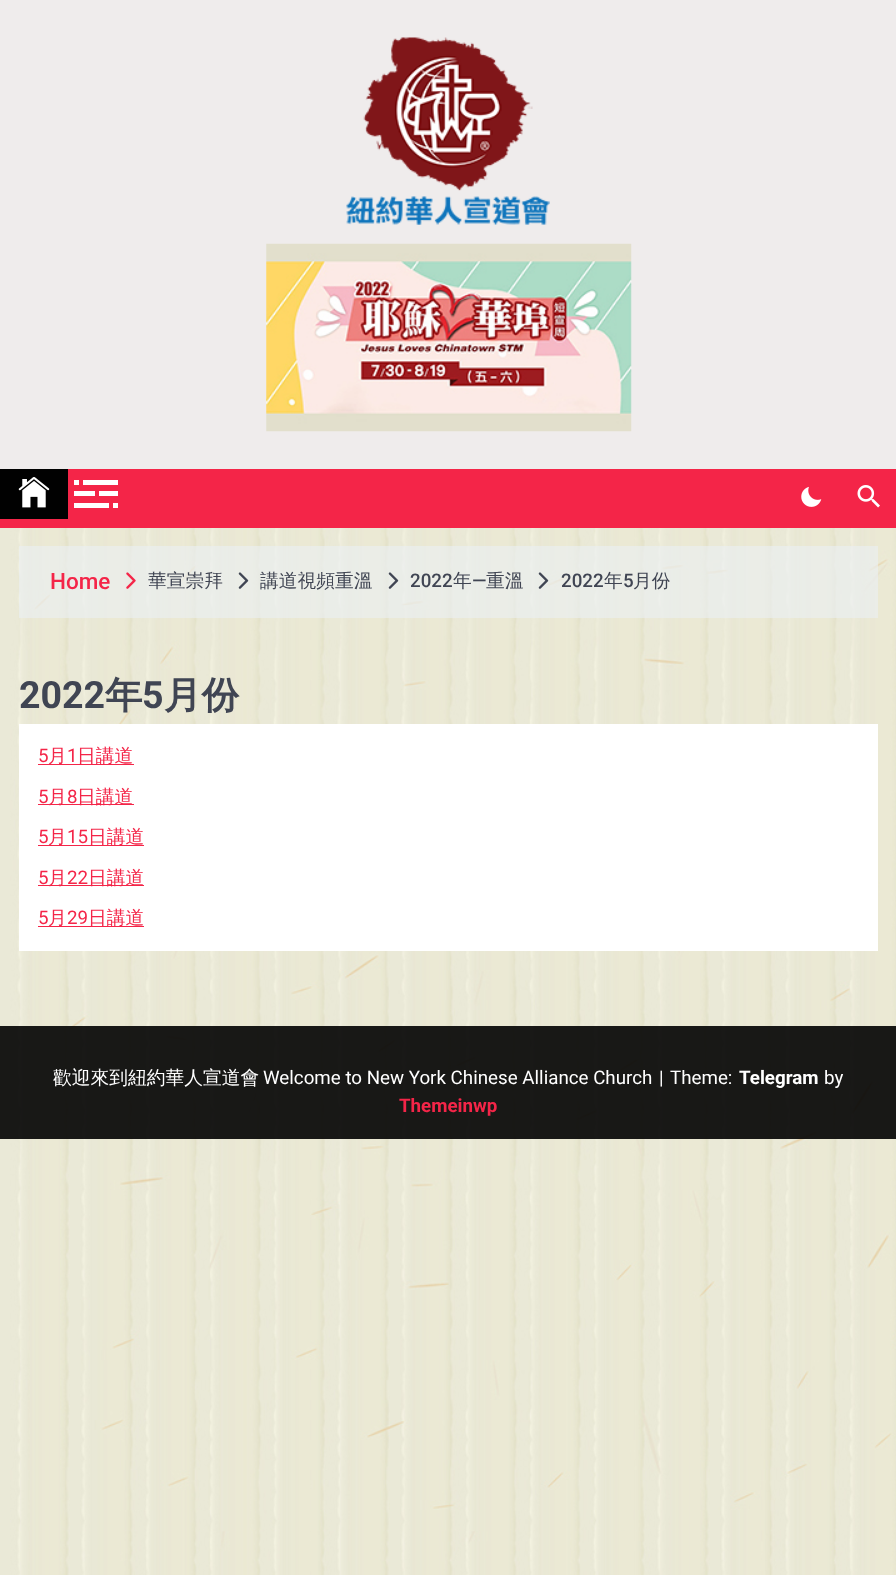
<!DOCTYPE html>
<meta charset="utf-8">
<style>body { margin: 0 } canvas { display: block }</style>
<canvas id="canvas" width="896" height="1575"></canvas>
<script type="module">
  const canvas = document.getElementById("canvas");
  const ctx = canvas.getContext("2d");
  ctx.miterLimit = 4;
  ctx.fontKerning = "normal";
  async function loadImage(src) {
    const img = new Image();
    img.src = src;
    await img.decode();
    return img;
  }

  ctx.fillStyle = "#ffffff";
  ctx.fillRect(0, 0, 896, 1575);
  ctx.drawImage(await loadImage("img1.png"), 0, 528, 896, 1047);
  ctx.fillStyle = "#efecec";
  ctx.fillRect(0, 0, 896, 469);
  ctx.drawImage(await loadImage("img2.png"), 346, 37, 204, 188);
  ctx.drawImage(await loadImage("img3.png"), 266, 243, 366, 189);
  ctx.fillStyle = "#f42548";
  ctx.fillRect(0, 469, 896, 59);
  ctx.fillStyle = "#010101";
  ctx.fillRect(0, 469, 68, 50);
  ctx.drawImage(await loadImage("img4.png"), 18, 477, 32, 31);
  ctx.fillStyle = "#ffffff";
  ctx.fillRect(74, 480, 44, 5);
  ctx.fillStyle = "#f42548";
  ctx.fillRect(79, 480, 4, 5);
  ctx.fillStyle = "#ffffff";
  ctx.fillRect(74, 491, 44, 5);
  ctx.fillStyle = "#f42548";
  ctx.fillRect(95, 491, 4, 5);
  ctx.fillStyle = "#ffffff";
  ctx.fillRect(74, 503, 44, 5);
  ctx.fillStyle = "#f42548";
  ctx.fillRect(109, 503, 4, 5);
  ctx.drawImage(await loadImage("img5.png"), 801, 486, 21, 21);
  ctx.drawImage(await loadImage("img6.png"), 857, 485, 23, 23);
  ctx.fillStyle = "rgba(234, 239, 242, 0.63)";
  ctx.fillRect(19, 546, 859, 72);
  ctx.font = "500 22.5px Roboto";
  ctx.fillStyle = "#f42548";
  ctx.fillText("Home", 50, 589);
  ctx.drawImage(await loadImage("img7.png"), 126, 572, 10, 17);
  ctx.font = "500 18.75px WenQuanYi Zen Hei";
  ctx.fillStyle = "#404553";
  ctx.fillText("華宣崇拜", 148, 587);
  ctx.drawImage(await loadImage("img8.png"), 238, 572, 11, 17);
  ctx.fillText("講道視頻重溫", 260, 587);
  ctx.drawImage(await loadImage("img9.png"), 388, 572, 11, 17);
  ctx.font = "500 18.75px Roboto";
  ctx.fillText("2022", 410, 587);
  ctx.font = "500 18.75px WenQuanYi Zen Hei";
  ctx.fillText("年", 453, 587);
  ctx.font = "500 18.75px Roboto";
  ctx.fillText("—", 472, 587);
  ctx.font = "500 18.75px WenQuanYi Zen Hei";
  ctx.fillText("重溫", 486, 587);
  ctx.drawImage(await loadImage("img10.png"), 538, 572, 11, 17);
  ctx.font = "500 18.75px Roboto";
  ctx.fillText("2022", 561, 587);
  ctx.font = "500 18.75px WenQuanYi Zen Hei";
  ctx.fillText("年", 604, 587);
  ctx.font = "500 18.75px Roboto";
  ctx.fillText("5", 623, 587);
  ctx.font = "500 18.75px WenQuanYi Zen Hei";
  ctx.fillText("月份", 633, 587);
  ctx.font = "bold 37.5px Roboto";
  ctx.fillText("2022", 19, 708);
  ctx.font = "bold 37.5px WenQuanYi Zen Hei";
  ctx.fillText("年", 105, 708);
  ctx.font = "bold 37.5px Roboto";
  ctx.fillText("5", 142, 708);
  ctx.font = "bold 37.5px WenQuanYi Zen Hei";
  ctx.fillText("月份", 164, 708);
  ctx.fillStyle = "#ffffff";
  ctx.fillRect(19, 724, 859, 227);
  ctx.font = "18.75px Roboto";
  ctx.fillStyle = "#f42548";
  ctx.fillText("5", 38, 762);
  ctx.fillRect(38, 764, 96, 1);
  ctx.font = "500 18.75px WenQuanYi Zen Hei";
  ctx.fillText("月", 48, 762);
  ctx.font = "18.75px Roboto";
  ctx.fillText("1", 67, 762);
  ctx.font = "500 18.75px WenQuanYi Zen Hei";
  ctx.fillText("日講道", 77, 762);
  ctx.font = "18.75px Roboto";
  ctx.fillText("5", 38, 803);
  ctx.fillRect(38, 804, 96, 1);
  ctx.font = "500 18.75px WenQuanYi Zen Hei";
  ctx.fillText("月", 48, 803);
  ctx.font = "18.75px Roboto";
  ctx.fillText("8", 67, 803);
  ctx.font = "500 18.75px WenQuanYi Zen Hei";
  ctx.fillText("日講道", 77, 803);
  ctx.font = "18.75px Roboto";
  ctx.fillText("5", 38, 843);
  ctx.fillRect(38, 845, 106, 1);
  ctx.font = "500 18.75px WenQuanYi Zen Hei";
  ctx.fillText("月", 48, 843);
  ctx.font = "18.75px Roboto";
  ctx.fillText("15", 67, 843);
  ctx.font = "500 18.75px WenQuanYi Zen Hei";
  ctx.fillText("日講道", 88, 843);
  ctx.font = "18.75px Roboto";
  ctx.fillText("5", 38, 884);
  ctx.fillRect(38, 885, 106, 1);
  ctx.font = "500 18.75px WenQuanYi Zen Hei";
  ctx.fillText("月", 48, 884);
  ctx.font = "18.75px Roboto";
  ctx.fillText("22", 67, 884);
  ctx.font = "500 18.75px WenQuanYi Zen Hei";
  ctx.fillText("日講道", 88, 884);
  ctx.font = "18.75px Roboto";
  ctx.fillText("5", 38, 924);
  ctx.fillRect(38, 926, 106, 1);
  ctx.font = "500 18.75px WenQuanYi Zen Hei";
  ctx.fillText("月", 48, 924);
  ctx.font = "18.75px Roboto";
  ctx.fillText("29", 67, 924);
  ctx.font = "500 18.75px WenQuanYi Zen Hei";
  ctx.fillText("日講道", 88, 924);
  ctx.fillStyle = "rgba(1, 1, 1, 0.9)";
  ctx.fillRect(0, 1026, 896, 113);
  ctx.fillStyle = "#ffffff";
  ctx.fillText("歡迎來到紐約華人宣道會", 53, 1084);
  ctx.font = "18.75px Roboto";
  ctx.fillText("Welcome to New York Chinese Alliance Church", 263, 1084);
  ctx.fillText("|", 659, 1084);
  ctx.fillText("Theme:", 670, 1084);
  ctx.font = "bold 18.75px Roboto";
  ctx.fillText("Telegram", 739, 1084);
  ctx.font = "18.75px Roboto";
  ctx.fillText("by", 824, 1084);
  ctx.font = "bold 18.75px Roboto";
  ctx.fillStyle = "#f42548";
  ctx.fillText("Themeinwp", 399, 1112);
</script>
